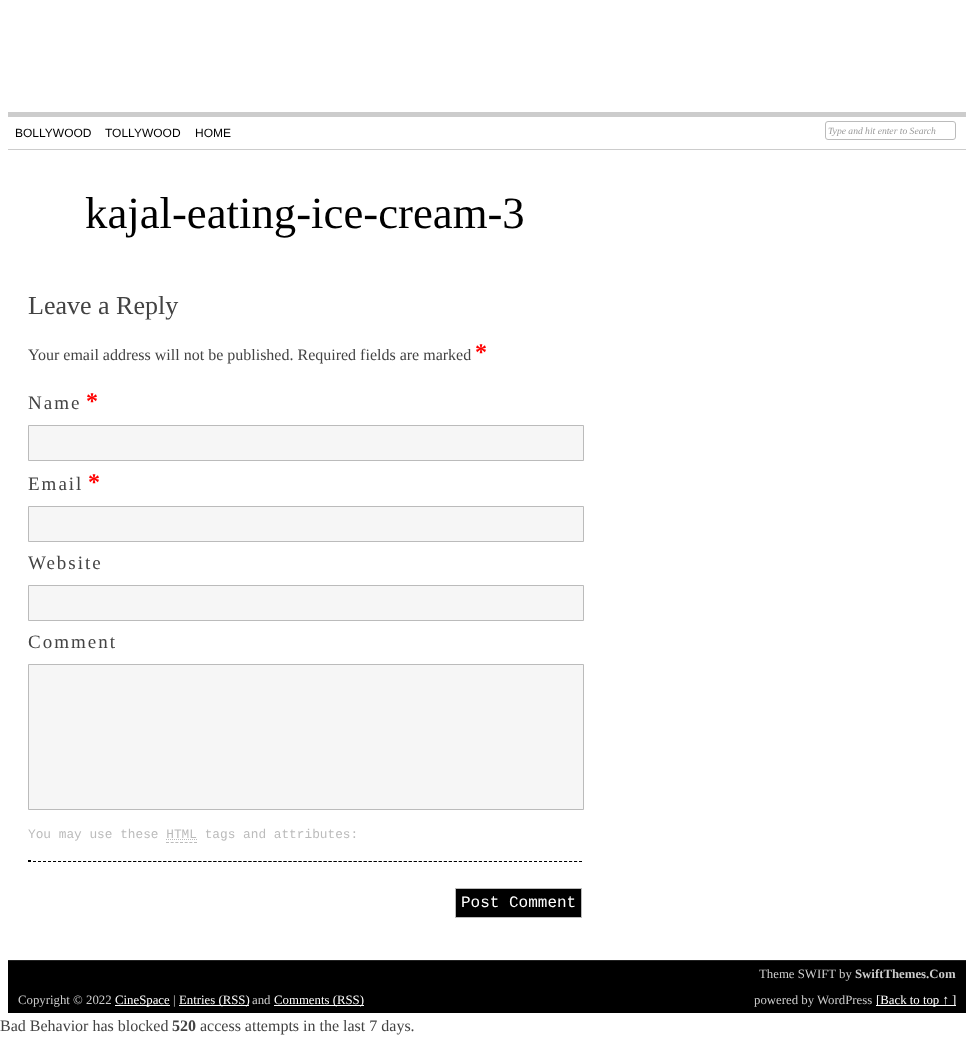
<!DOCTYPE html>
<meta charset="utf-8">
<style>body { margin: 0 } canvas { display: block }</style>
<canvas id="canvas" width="974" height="1057"></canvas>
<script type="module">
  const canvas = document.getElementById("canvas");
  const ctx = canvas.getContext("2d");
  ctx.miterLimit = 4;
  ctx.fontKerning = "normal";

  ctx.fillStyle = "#ffffff";
  ctx.fillRect(0, 0, 974, 1057);
  ctx.fillStyle = "#cccccc";
  ctx.fillRect(8, 112, 958, 5);
  ctx.fillRect(8, 149, 958, 1);
  ctx.font = "12px Liberation Sans";
  ctx.fillStyle = "#000000";
  ctx.fillText("BOLLYWOOD", 15, 137);
  ctx.fillText("TOLLYWOOD", 105, 137);
  ctx.fillText("HOME", 195, 137);
  ctx.beginPath();
  ctx.roundRect(825.5, 121.5, 130, 18, 2.5);
  ctx.strokeStyle = "#bbbbbb";
  ctx.stroke();
  ctx.font = "italic 9.6px Liberation Serif";
  ctx.fillStyle = "#999999";
  ctx.fillText("Type and hit enter to Search", 828, 134);
  ctx.font = "44.75px Liberation Serif";
  ctx.fillStyle = "#000000";
  ctx.fillText("kajal-eating-ice-cream-3", 85, 228);
  ctx.font = "26px Liberation Serif";
  ctx.fillStyle = "#434343";
  ctx.fillText("Leave a Reply", 28, 314);
  ctx.font = "16px Liberation Serif";
  ctx.fillText("Your email address will not be published. Required fields are marked", 28, 360);
  ctx.font = "bold 24px Liberation Serif";
  ctx.fillStyle = "#ff0000";
  ctx.fillText("*", 475, 360);
  ctx.letterSpacing = "2px";
  ctx.font = "19px Liberation Serif";
  ctx.fillStyle = "#434343";
  ctx.fillText("Name", 28, 409);
  ctx.letterSpacing = "0px";
  ctx.font = "bold 24px Liberation Serif";
  ctx.fillStyle = "#ff0000";
  ctx.fillText("*", 86, 409);
  ctx.fillStyle = "#f6f6f6";
  ctx.beginPath();
  ctx.rect(28.5, 425.5, 555, 35);
  ctx.fill();
  ctx.stroke();
  ctx.letterSpacing = "2px";
  ctx.font = "19px Liberation Serif";
  ctx.fillStyle = "#434343";
  ctx.fillText("Email", 28, 490);
  ctx.letterSpacing = "0px";
  ctx.font = "bold 24px Liberation Serif";
  ctx.fillStyle = "#ff0000";
  ctx.fillText("*", 88, 490);
  ctx.fillStyle = "#f6f6f6";
  ctx.beginPath();
  ctx.rect(28.5, 506.5, 555, 35);
  ctx.fill();
  ctx.stroke();
  ctx.letterSpacing = "2px";
  ctx.font = "19px Liberation Serif";
  ctx.fillStyle = "#434343";
  ctx.fillText("Website", 28, 569);
  ctx.fillStyle = "#f6f6f6";
  ctx.beginPath();
  ctx.rect(28.5, 585.5, 555, 35);
  ctx.fill();
  ctx.stroke();
  ctx.fillStyle = "#434343";
  ctx.fillText("Comment", 28, 648);
  ctx.fillStyle = "#f6f6f6";
  ctx.beginPath();
  ctx.rect(28.5, 664.5, 555, 145);
  ctx.fill();
  ctx.stroke();
  ctx.letterSpacing = "0px";
  ctx.font = "12.8px Liberation Mono";
  ctx.fillStyle = "#bbbbbb";
  ctx.fillText("You may use these HTML tags and attributes:", 28, 838);
  ctx.beginPath();
  ctx.moveTo(166, 839.5);
  ctx.lineTo(197, 839.5);
  ctx.setLineDash([1, 1]);
  ctx.stroke();
  ctx.beginPath();
  ctx.moveTo(166, 842.5);
  ctx.lineTo(197, 842.5);
  ctx.setLineDash([3, 1.67]);
  ctx.stroke();
  ctx.beginPath();
  ctx.moveTo(28, 861.5);
  ctx.lineTo(582, 861.5);
  ctx.strokeStyle = "#000000";
  ctx.setLineDash([3, 2.01]);
  ctx.stroke();
  ctx.beginPath();
  ctx.moveTo(28, 861.5);
  ctx.lineTo(582, 861.5);
  ctx.stroke();
  ctx.beginPath();
  ctx.moveTo(28, 860.5);
  ctx.lineTo(31, 860.5);
  ctx.setLineDash([]);
  ctx.stroke();
  ctx.fillStyle = "#000000";
  ctx.beginPath();
  ctx.rect(455.5, 888.5, 126, 29);
  ctx.fill();
  ctx.strokeStyle = "#bbbbbb";
  ctx.stroke();
  ctx.font = "16px Liberation Mono";
  ctx.fillStyle = "#ffffff";
  ctx.fillText("Post Comment", 461, 907);
  ctx.fillStyle = "#000000";
  ctx.fillRect(8, 961, 958, 52);
  ctx.fillStyle = "#222222";
  ctx.fillRect(8, 960, 958, 1);
  ctx.font = "12.8px Liberation Serif";
  ctx.fillStyle = "#cccccc";
  ctx.fillText("Theme SWIFT by", 759, 978);
  ctx.font = "bold 12.8px Liberation Serif";
  ctx.fillText("SwiftThemes.Com", 855, 978);
  ctx.font = "12.8px Liberation Serif";
  ctx.fillText("Copyright © 2022", 18, 1004);
  ctx.fillStyle = "#ffffff";
  ctx.fillRect(115, 1005, 55, 1);
  ctx.fillText("CineSpace", 115, 1004);
  ctx.fillStyle = "#cccccc";
  ctx.fillText("|", 173, 1004);
  ctx.fillStyle = "#ffffff";
  ctx.fillRect(179, 1005, 70, 1);
  ctx.fillText("Entries (RSS)", 179, 1004);
  ctx.fillStyle = "#cccccc";
  ctx.fillText("and", 252, 1004);
  ctx.fillStyle = "#ffffff";
  ctx.fillRect(274, 1005, 90, 1);
  ctx.fillText("Comments (RSS)", 274, 1004);
  ctx.fillStyle = "#cccccc";
  ctx.fillText("powered by WordPress", 754, 1004);
  ctx.fillStyle = "#ffffff";
  ctx.fillRect(876, 1005, 80, 1);
  ctx.fillText("[Back to top ↑ ]", 876, 1004);
  ctx.font = "16px Liberation Serif";
  ctx.fillStyle = "#434343";
  ctx.fillText("Bad Behavior has blocked", 0, 1031);
  ctx.font = "bold 16px Liberation Serif";
  ctx.fillText("520", 172, 1031);
  ctx.font = "16px Liberation Serif";
  ctx.fillText("access attempts in the last 7 days.", 200, 1031);
</script>
